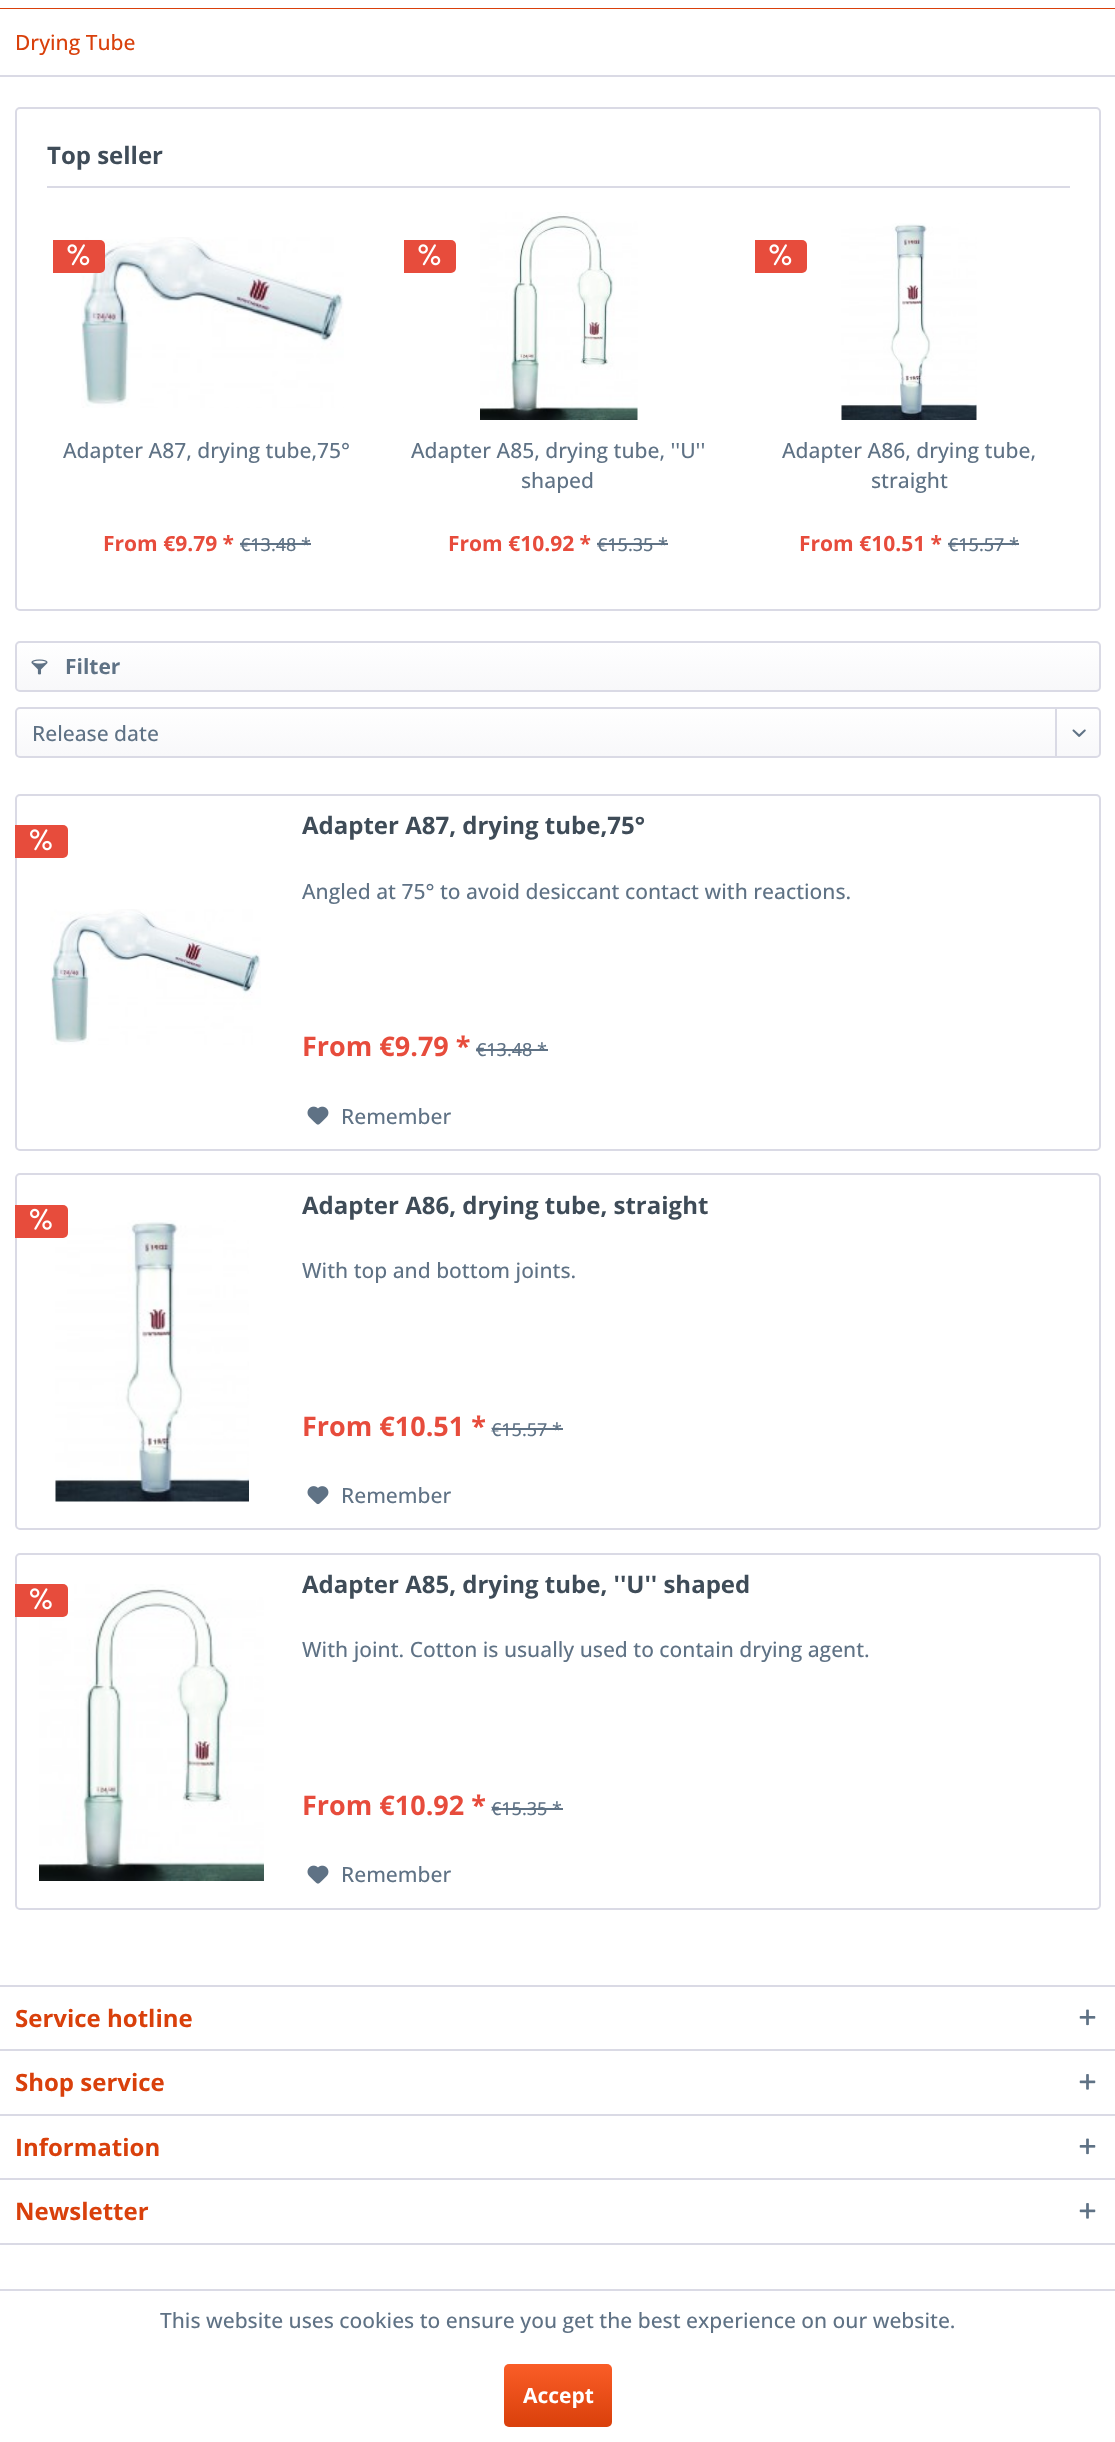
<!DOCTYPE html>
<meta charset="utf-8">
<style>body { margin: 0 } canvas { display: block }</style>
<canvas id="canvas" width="1115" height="2442"></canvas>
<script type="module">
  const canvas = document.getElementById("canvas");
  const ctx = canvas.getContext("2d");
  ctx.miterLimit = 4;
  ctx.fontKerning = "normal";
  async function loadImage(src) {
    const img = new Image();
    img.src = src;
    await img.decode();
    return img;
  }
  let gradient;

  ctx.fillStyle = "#ffffff";
  ctx.fillRect(0, 0, 1115, 2442);
  ctx.fillStyle = "#d9400b";
  ctx.fillRect(0, 8, 1115, 1);
  ctx.fillStyle = "#dadae5";
  ctx.fillRect(0, 75, 1115, 2);
  ctx.font = "500 21px Open Sans";
  ctx.fillStyle = "#d9400b";
  ctx.fillText("Drying Tube", 15, 50);
  ctx.beginPath();
  ctx.roundRect(16, 108, 1084, 502, 4);
  ctx.strokeStyle = "#dadae5";
  ctx.lineWidth = 2;
  ctx.stroke();
  ctx.fillStyle = "#dadae5";
  ctx.fillRect(47, 186, 1023, 2);
  ctx.font = "bold 24px Open Sans";
  ctx.fillStyle = "#3f4c58";
  ctx.fillText("Top seller", 47, 164);
  ctx.drawImage(await loadImage("img2.png"), 81, 237, 263, 171);
  ctx.fillStyle = "#e74c3c";
  ctx.beginPath();
  ctx.roundRect(53, 240, 52, 33, [0, 5, 5, 0]);
  ctx.fill();
  ctx.drawImage(await loadImage("img1.png"), 67, 244, 23, 22);
  ctx.font = "500 21px Open Sans";
  ctx.fillStyle = "#5f7285";
  ctx.fillText("Adapter A87, drying tube,75°", 63, 458);
  ctx.font = "bold 21px Open Sans";
  ctx.fillStyle = "#e74c3c";
  ctx.fillText("From €9.79 *", 103, 551);
  ctx.font = "500 18px Open Sans";
  ctx.fillStyle = "#5f7285";
  ctx.fillText("€13.48 *", 240, 551);
  ctx.fillRect(240, 543, 71, 2);
  ctx.fillStyle = "#e74c3c";
  ctx.beginPath();
  ctx.roundRect(404, 240, 52, 33, [0, 5, 5, 0]);
  ctx.fill();
  ctx.drawImage(await loadImage("img1.png"), 418, 244, 23, 22);
  ctx.drawImage(await loadImage("img3.png"), 480, 212, 158, 208);
  ctx.font = "500 21px Open Sans";
  ctx.fillStyle = "#5f7285";
  ctx.fillText("Adapter A85, drying tube, ''U''", 411, 458);
  ctx.fillText("shaped", 521, 488);
  ctx.font = "bold 21px Open Sans";
  ctx.fillStyle = "#e74c3c";
  ctx.fillText("From €10.92 *", 448, 551);
  ctx.font = "500 18px Open Sans";
  ctx.fillStyle = "#5f7285";
  ctx.fillText("€15.35 *", 597, 551);
  ctx.fillRect(597, 543, 71, 2);
  ctx.fillStyle = "#e74c3c";
  ctx.beginPath();
  ctx.roundRect(755, 240, 52, 33, [0, 5, 5, 0]);
  ctx.fill();
  ctx.drawImage(await loadImage("img1.png"), 769, 244, 23, 22);
  ctx.drawImage(await loadImage("img4.png"), 841, 223, 136, 197);
  ctx.font = "500 21px Open Sans";
  ctx.fillStyle = "#5f7285";
  ctx.fillText("Adapter A86, drying tube,", 782, 458);
  ctx.fillText("straight", 871, 488);
  ctx.font = "bold 21px Open Sans";
  ctx.fillStyle = "#e74c3c";
  ctx.fillText("From €10.51 *", 799, 551);
  ctx.font = "500 18px Open Sans";
  ctx.fillStyle = "#5f7285";
  ctx.fillText("€15.57 *", 948, 551);
  ctx.fillRect(948, 543, 71, 2);
  gradient = ctx.createLinearGradient(558, 642, 558, 690);
  gradient.addColorStop(0, "#ffffff");
  gradient.addColorStop(1, "#f8f8fa");
  ctx.fillStyle = gradient;
  ctx.beginPath();
  ctx.roundRect(17, 642, 1083, 48, 3);
  ctx.fill();
  ctx.beginPath();
  ctx.roundRect(16, 642, 1084, 49, 4);
  ctx.stroke();
  ctx.drawImage(await loadImage("img5.png"), 31, 659, 17, 16);
  ctx.font = "bold 21px Open Sans";
  ctx.fillStyle = "#5f7285";
  ctx.fillText("Filter", 65, 674);
  gradient = ctx.createLinearGradient(558, 708, 558, 756);
  gradient.addColorStop(0, "#ffffff");
  gradient.addColorStop(1, "#f8f8fa");
  ctx.fillStyle = gradient;
  ctx.beginPath();
  ctx.roundRect(17, 708, 1083, 48, 3);
  ctx.fill();
  ctx.beginPath();
  ctx.roundRect(16, 708, 1084, 49, 4);
  ctx.stroke();
  ctx.font = "500 21px Open Sans";
  ctx.fillStyle = "#5f7285";
  ctx.fillText("Release date", 32, 741);
  ctx.fillStyle = "#dadae5";
  ctx.fillRect(1055, 708, 2, 50);
  ctx.drawImage(await loadImage("img6.png"), 1072, 729, 14, 8);
  ctx.beginPath();
  ctx.roundRect(16, 795, 1084, 355, 4);
  ctx.stroke();
  ctx.fillStyle = "#e74c3c";
  ctx.beginPath();
  ctx.roundRect(15, 825, 53, 33, [0, 5, 5, 0]);
  ctx.fill();
  ctx.drawImage(await loadImage("img7.png"), 30, 829, 22, 22);
  ctx.font = "bold 24px Open Sans";
  ctx.fillStyle = "#3f4c58";
  ctx.fillText("Adapter A87, drying tube,75°", 302, 834);
  ctx.font = "500 21px Open Sans";
  ctx.fillStyle = "#5f7285";
  ctx.fillText("Angled at 75° to avoid desiccant contact with reactions.", 302, 899);
  ctx.drawImage(await loadImage("img8.png"), 50, 909, 211, 136);
  ctx.font = "bold 27px Open Sans";
  ctx.fillStyle = "#e74c3c";
  ctx.fillText("From €9.79 *", 302, 1056);
  ctx.font = "500 18px Open Sans";
  ctx.fillStyle = "#5f7285";
  ctx.fillText("€13.48 *", 476, 1056);
  ctx.fillRect(476, 1049, 72, 2);
  ctx.drawImage(await loadImage("img9.png"), 307, 1106, 22, 19);
  ctx.font = "500 21px Open Sans";
  ctx.fillText("Remember", 341, 1124);
  ctx.beginPath();
  ctx.roundRect(16, 1174, 1084, 355, 4);
  ctx.stroke();
  ctx.drawImage(await loadImage("img11.png"), 55, 1220, 194, 282);
  ctx.fillStyle = "#e74c3c";
  ctx.beginPath();
  ctx.roundRect(15, 1205, 53, 33, [0, 5, 5, 0]);
  ctx.fill();
  ctx.drawImage(await loadImage("img10.png"), 30, 1208, 22, 22);
  ctx.font = "bold 24px Open Sans";
  ctx.fillStyle = "#3f4c58";
  ctx.fillText("Adapter A86, drying tube, straight", 302, 1214);
  ctx.font = "500 21px Open Sans";
  ctx.fillStyle = "#5f7285";
  ctx.fillText("With top and bottom joints.", 302, 1278);
  ctx.font = "bold 27px Open Sans";
  ctx.fillStyle = "#e74c3c";
  ctx.fillText("From €10.51 *", 302, 1436);
  ctx.font = "500 18px Open Sans";
  ctx.fillStyle = "#5f7285";
  ctx.fillText("€15.57 *", 491, 1436);
  ctx.fillRect(492, 1428, 71, 2);
  ctx.drawImage(await loadImage("img12.png"), 307, 1486, 22, 19);
  ctx.font = "500 21px Open Sans";
  ctx.fillText("Remember", 341, 1503);
  ctx.beginPath();
  ctx.roundRect(16, 1554, 1084, 355, 4);
  ctx.stroke();
  ctx.drawImage(await loadImage("img13.png"), 39, 1584, 225, 297);
  ctx.fillStyle = "#e74c3c";
  ctx.beginPath();
  ctx.roundRect(15, 1584, 53, 33, [0, 5, 5, 0]);
  ctx.fill();
  ctx.drawImage(await loadImage("img7.png"), 30, 1588, 22, 22);
  ctx.font = "bold 24px Open Sans";
  ctx.fillStyle = "#3f4c58";
  ctx.fillText("Adapter A85, drying tube, ''U'' shaped", 302, 1593);
  ctx.font = "500 21px Open Sans";
  ctx.fillStyle = "#5f7285";
  ctx.fillText("With joint. Cotton is usually used to contain drying agent.", 302, 1657);
  ctx.font = "bold 27px Open Sans";
  ctx.fillStyle = "#e74c3c";
  ctx.fillText("From €10.92 *", 302, 1815);
  ctx.font = "500 18px Open Sans";
  ctx.fillStyle = "#5f7285";
  ctx.fillText("€15.35 *", 491, 1815);
  ctx.fillRect(492, 1808, 71, 2);
  ctx.drawImage(await loadImage("img9.png"), 307, 1865, 22, 19);
  ctx.font = "500 21px Open Sans";
  ctx.fillText("Remember", 341, 1882);
  ctx.fillStyle = "#dadae5";
  ctx.fillRect(0, 1985, 1115, 2);
  ctx.font = "bold 24px Open Sans";
  ctx.fillStyle = "#d9400b";
  ctx.fillText("Service hotline", 15, 2027);
  ctx.drawImage(await loadImage("img14.png"), 1079, 2009, 17, 17);
  ctx.fillStyle = "#dadae5";
  ctx.fillRect(0, 2049, 1115, 2);
  ctx.fillStyle = "#d9400b";
  ctx.fillText("Shop service", 15, 2091);
  ctx.drawImage(await loadImage("img15.png"), 1079, 2074, 17, 16);
  ctx.fillStyle = "#dadae5";
  ctx.fillRect(0, 2114, 1115, 2);
  ctx.fillStyle = "#d9400b";
  ctx.fillText("Information", 15, 2156);
  ctx.drawImage(await loadImage("img14.png"), 1079, 2138, 17, 17);
  ctx.fillStyle = "#dadae5";
  ctx.fillRect(0, 2178, 1115, 2);
  ctx.fillRect(0, 2243, 1115, 2);
  ctx.fillStyle = "#d9400b";
  ctx.fillText("Newsletter", 15, 2220);
  ctx.drawImage(await loadImage("img15.png"), 1079, 2203, 17, 16);
  ctx.fillStyle = "#dadae5";
  ctx.fillRect(0, 2289, 1115, 2);
  ctx.font = "500 21px Open Sans";
  ctx.fillStyle = "#5f7285";
  ctx.fillText("This website uses cookies to ensure you get the best experience on our website.", 160, 2328);
  gradient = ctx.createLinearGradient(558, 2364, 558, 2427);
  gradient.addColorStop(0, "#fa5d27");
  gradient.addColorStop(1, "#d9400b");
  ctx.fillStyle = gradient;
  ctx.beginPath();
  ctx.roundRect(504, 2364, 108, 63, 5);
  ctx.fill();
  ctx.font = "bold 21px Open Sans";
  ctx.fillStyle = "#ffffff";
  ctx.fillText("Accept", 523, 2403);
</script>
